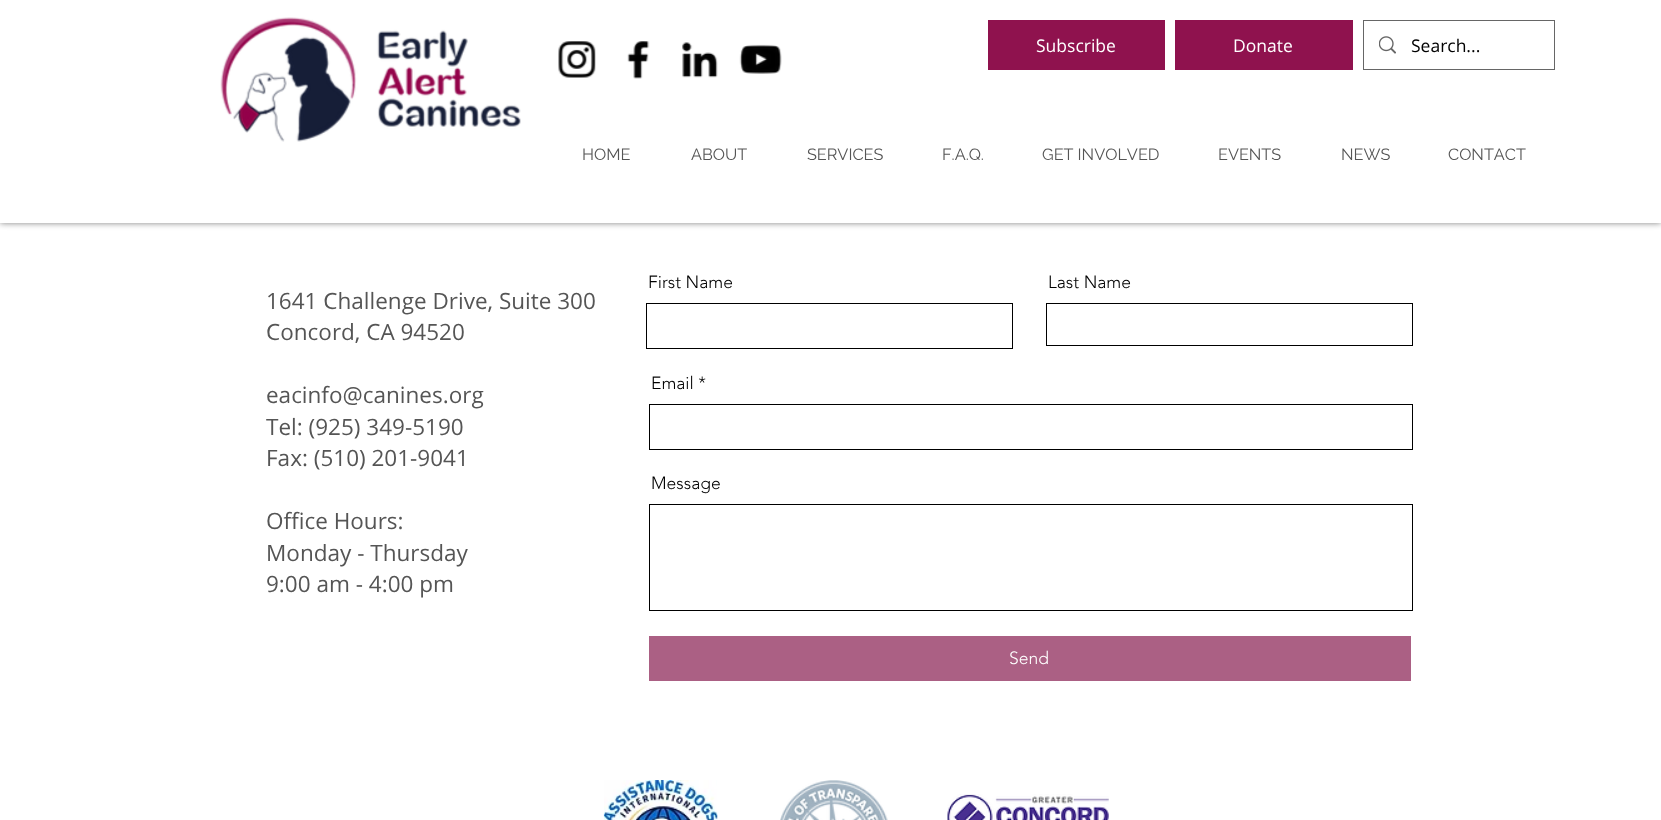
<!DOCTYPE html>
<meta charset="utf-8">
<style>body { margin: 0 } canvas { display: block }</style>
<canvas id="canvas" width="1661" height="820"></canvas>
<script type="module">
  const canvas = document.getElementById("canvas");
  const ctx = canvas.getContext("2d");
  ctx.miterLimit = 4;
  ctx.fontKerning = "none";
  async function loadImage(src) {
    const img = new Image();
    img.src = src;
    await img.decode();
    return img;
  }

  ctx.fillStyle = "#ffffff";
  ctx.fillRect(0, 0, 1661, 820);
  ctx.save();
  ctx.beginPath();
  ctx.moveTo(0, 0);
  ctx.lineTo(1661, 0);
  ctx.lineTo(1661, 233);
  ctx.lineTo(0, 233);
  ctx.closePath();
  ctx.moveTo(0, 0);
  ctx.lineTo(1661, 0);
  ctx.lineTo(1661, 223);
  ctx.lineTo(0, 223);
  ctx.closePath();
  ctx.clip("evenodd");
  ctx.fillStyle = "rgba(0, 0, 0, 0.5)";
  ctx.filter = "blur(3px)";
  ctx.beginPath();
  ctx.rect(0, 0, 1661, 223);
  ctx.fill();
  ctx.filter = "none";
  ctx.restore();
  ctx.fillStyle = "rgba(255, 255, 255, 0.9)";
  ctx.fillRect(0, 222, 1661, 1);
  ctx.drawImage(await loadImage("img1.png"), 220, 17, 301, 125);
  ctx.drawImage(await loadImage("img2.png"), 558, 41, 38, 37);
  ctx.drawImage(await loadImage("img3.png"), 627, 41, 23, 38);
  ctx.drawImage(await loadImage("img4.png"), 682, 42, 36, 36);
  ctx.drawImage(await loadImage("img5.png"), 739, 44, 43, 30);
  ctx.fillStyle = "#8f124e";
  ctx.fillRect(988, 20, 177, 50);
  ctx.font = "17.5px Open Sans";
  ctx.fillStyle = "#ffffff";
  ctx.fillText("Subscribe", 1036, 52);
  ctx.fillStyle = "#8f124e";
  ctx.fillRect(1175, 20, 178, 50);
  ctx.fillStyle = "#ffffff";
  ctx.fillText("Donate", 1233, 52);
  ctx.strokeStyle = "#666666";
  ctx.strokeRect(1363.5, 20.5, 191, 49);
  ctx.drawImage(await loadImage("img6.png"), 1379, 36, 17, 18);
  ctx.fillStyle = "#000000";
  ctx.fillText("Search...", 1411, 52);
  ctx.font = "16.25px Raleway";
  ctx.fillStyle = "#555555";
  ctx.fillText("HOME", 582, 160);
  ctx.fillText("ABOUT", 691, 160);
  ctx.fillText("SERVICES", 807, 160);
  ctx.fillText("F.A.Q.", 942, 160);
  ctx.fillText("GET INVOLVED", 1042, 160);
  ctx.fillText("EVENTS", 1218, 160);
  ctx.fillText("NEWS", 1341, 160);
  ctx.fillText("CONTACT", 1448, 160);
  ctx.font = "22.5px Open Sans";
  ctx.fillText("1641 Challenge Drive, Suite 300", 266, 309);
  ctx.fillText("Concord, CA 94520", 266, 340);
  ctx.fillText("eacinfo@canines.org", 266, 403);
  ctx.fillText("Tel: (925) 349-5190", 266, 435);
  ctx.fillText("Fax: (510) 201-9041", 266, 466);
  ctx.fillText("Office Hours:", 266, 529);
  ctx.fillText("Monday - Thursday", 266, 561);
  ctx.fillText("9:00 am - 4:00 pm", 266, 592);
  ctx.font = "300 17.5px 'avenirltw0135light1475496'";
  ctx.fillStyle = "#000000";
  ctx.fillText("First Name", 648, 288);
  ctx.strokeStyle = "#000000";
  ctx.strokeRect(646.5, 303.5, 366, 45);
  ctx.fillText("Last Name", 1048, 288);
  ctx.strokeRect(1046.5, 303.5, 366, 42);
  ctx.fillText("Email *", 651, 389);
  ctx.strokeRect(649.5, 404.5, 763, 45);
  ctx.fillText("Message", 651, 489);
  ctx.strokeRect(649.5, 504.5, 763, 106);
  ctx.fillStyle = "#ab6084";
  ctx.fillRect(649, 636, 762, 45);
  ctx.fillStyle = "#ffffff";
  ctx.fillText("Send", 1009, 664);
  ctx.drawImage(await loadImage("img7.png"), 603, 780, 115, 40);
  ctx.drawImage(await loadImage("img8.png"), 780, 780, 108, 40);
  ctx.drawImage(await loadImage("img9.png"), 947, 794, 162, 26);
</script>
